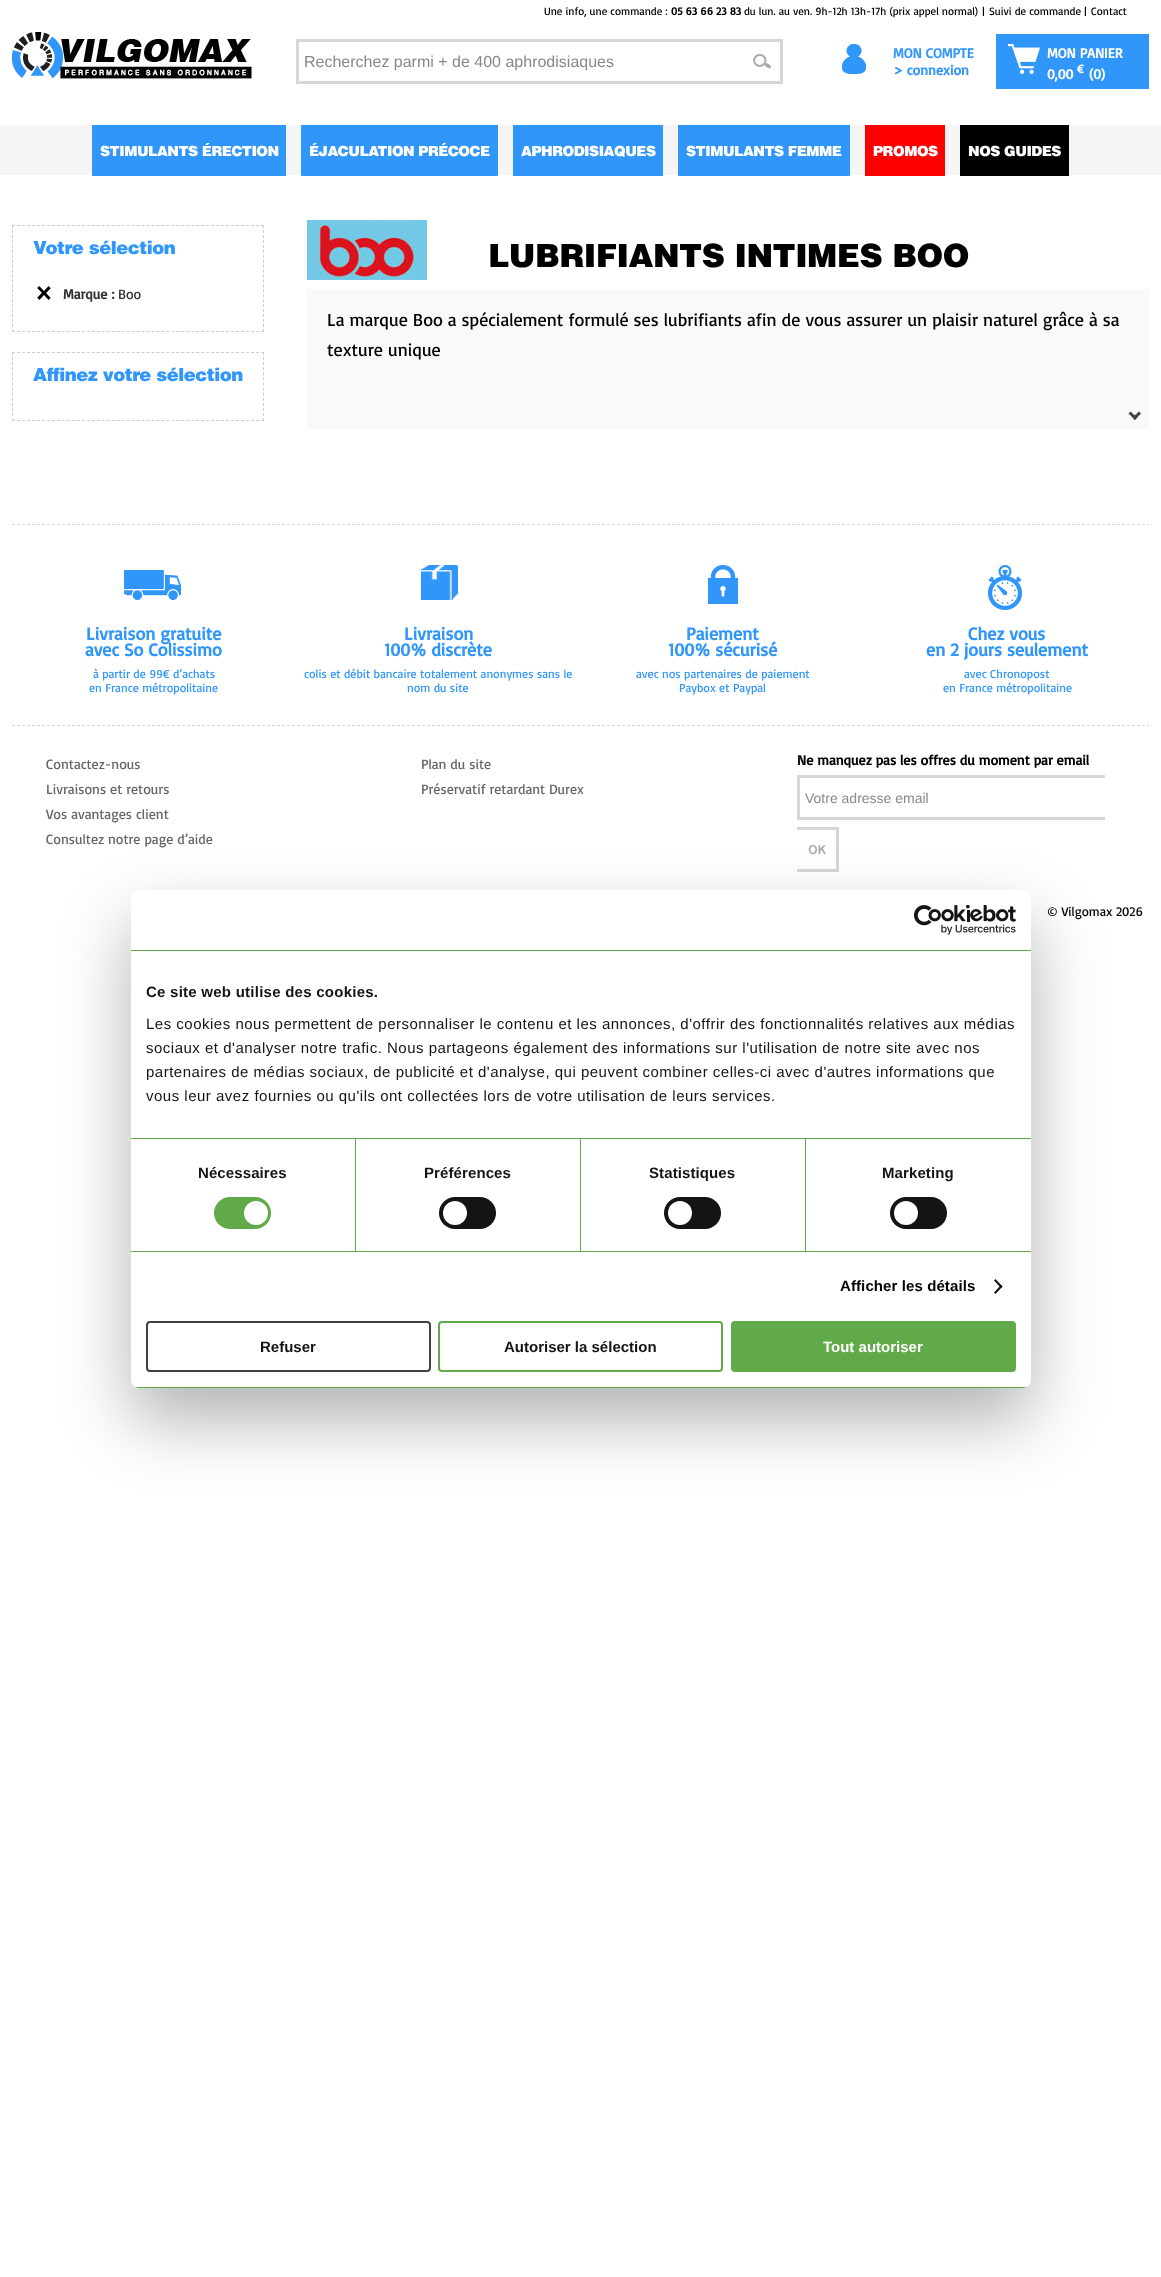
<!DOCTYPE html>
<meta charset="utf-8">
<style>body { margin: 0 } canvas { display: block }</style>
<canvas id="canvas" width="1161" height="2277"></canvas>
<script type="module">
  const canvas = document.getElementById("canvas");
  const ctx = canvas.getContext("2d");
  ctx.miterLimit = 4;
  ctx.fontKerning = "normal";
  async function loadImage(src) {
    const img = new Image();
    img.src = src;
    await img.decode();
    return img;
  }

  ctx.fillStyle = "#ffffff";
  ctx.fillRect(0, 0, 1161, 2277);
  ctx.font = "11px Basic";
  ctx.fillStyle = "#000000";
  ctx.fillText("Une info, une commande :", 544, 15);
  ctx.font = "bold 11px Basic";
  ctx.fillText("05 63 66 23 83", 671, 15);
  ctx.font = "11px Basic";
  ctx.fillText("du lun. au ven. 9h-12h 13h-17h (prix appel normal)", 744, 15);
  ctx.fillText("|", 982, 15);
  ctx.fillText("Suivi de commande", 989, 15);
  ctx.fillText("|", 1084, 15);
  ctx.fillText("Contact", 1091, 15);
  ctx.drawImage(await loadImage("img1.png"), 12, 32, 240, 47);
  ctx.fillStyle = "#d6d6d6";
  ctx.fillRect(296, 39, 445, 3);
  ctx.fillRect(296, 81, 445, 3);
  ctx.fillRect(296, 39, 3, 45);
  ctx.font = "16px Liberation Sans";
  ctx.fillStyle = "#888888";
  ctx.fillText("Recherchez parmi + de 400 aphrodisiaques", 304, 67);
  ctx.drawImage(await loadImage("img2.png"), 741, 39, 42, 45);
  ctx.drawImage(await loadImage("img3.png"), 842, 44, 24, 30);
  ctx.font = "bold 14px Basic";
  ctx.fillStyle = "#3096fa";
  ctx.fillText("MON COMPTE", 893, 58);
  ctx.fillText("> connexion", 893, 75);
  ctx.fillRect(996, 34, 153, 55);
  ctx.drawImage(await loadImage("img4.png"), 1008, 44, 32, 30);
  ctx.fillStyle = "#ffffff";
  ctx.fillText("MON PANIER", 1047, 58);
  ctx.fillText("0,00", 1047, 79);
  ctx.font = "bold 12px Basic";
  ctx.fillText("€", 1077, 73);
  ctx.font = "bold 14px Basic";
  ctx.fillText("(0)", 1089, 79);
  ctx.fillStyle = "#f5f5f5";
  ctx.fillRect(0, 125, 1161, 50);
  ctx.fillStyle = "#3096fa";
  ctx.fillRect(92, 125, 194, 51);
  ctx.letterSpacing = "-0.5px";
  ctx.font = "900 14px Helvetica";
  ctx.fillStyle = "#ffffff";
  ctx.fillText("STIMULANTS ÉRECTION", 100, 156);
  ctx.fillStyle = "#3096fa";
  ctx.fillRect(301, 125, 197, 51);
  ctx.fillStyle = "#ffffff";
  ctx.fillText("ÉJACULATION PRÉCOCE", 309, 156);
  ctx.fillStyle = "#3096fa";
  ctx.fillRect(513, 125, 150, 51);
  ctx.fillStyle = "#ffffff";
  ctx.fillText("APHRODISIAQUES", 521, 156);
  ctx.fillStyle = "#3096fa";
  ctx.fillRect(678, 125, 172, 51);
  ctx.fillStyle = "#ffffff";
  ctx.fillText("STIMULANTS FEMME", 686, 156);
  ctx.fillStyle = "#ff0000";
  ctx.fillRect(865, 125, 80, 51);
  ctx.fillStyle = "#ffffff";
  ctx.fillText("PROMOS", 873, 156);
  ctx.fillStyle = "#000000";
  ctx.fillRect(960, 125, 109, 51);
  ctx.fillStyle = "#ffffff";
  ctx.fillText("NOS GUIDES", 968, 156);
  ctx.beginPath();
  ctx.moveTo(12, 225.5);
  ctx.lineTo(264, 225.5);
  ctx.strokeStyle = "#cccccc";
  ctx.setLineDash([3, 1.98]);
  ctx.stroke();
  ctx.beginPath();
  ctx.moveTo(263.5, 225);
  ctx.lineTo(263.5, 332);
  ctx.setLineDash([3, 1.95]);
  ctx.stroke();
  ctx.beginPath();
  ctx.moveTo(12, 331.5);
  ctx.lineTo(264, 331.5);
  ctx.setLineDash([3, 1.98]);
  ctx.stroke();
  ctx.beginPath();
  ctx.moveTo(12.5, 225);
  ctx.lineTo(12.5, 332);
  ctx.setLineDash([3, 1.95]);
  ctx.stroke();
  ctx.font = "900 18px Helvetica";
  ctx.fillStyle = "#3096fa";
  ctx.fillText("Votre sélection", 33, 254);
  ctx.letterSpacing = "0px";
  ctx.font = "bold 26px Basic";
  ctx.fillStyle = "#000000";
  ctx.fillText("×", 35, 301);
  ctx.font = "bold 14px Basic";
  ctx.fillStyle = "#333333";
  ctx.fillText("Marque :", 63, 299);
  ctx.font = "14px Basic";
  ctx.fillText("Boo", 118, 299);
  ctx.beginPath();
  ctx.moveTo(12, 352.5);
  ctx.lineTo(264, 352.5);
  ctx.setLineDash([3, 1.98]);
  ctx.stroke();
  ctx.beginPath();
  ctx.moveTo(263.5, 352);
  ctx.lineTo(263.5, 421);
  ctx.setLineDash([3, 2.08]);
  ctx.stroke();
  ctx.beginPath();
  ctx.moveTo(12, 420.5);
  ctx.lineTo(264, 420.5);
  ctx.setLineDash([3, 1.98]);
  ctx.stroke();
  ctx.beginPath();
  ctx.moveTo(12.5, 352);
  ctx.lineTo(12.5, 421);
  ctx.setLineDash([3, 2.08]);
  ctx.stroke();
  ctx.letterSpacing = "-0.5px";
  ctx.font = "900 18px Helvetica";
  ctx.fillStyle = "#3096fa";
  ctx.fillText("Affinez votre sélection", 33, 381);
  ctx.drawImage(await loadImage("img5.png"), 307, 220, 120, 60);
  ctx.font = "900 32px Helvetica";
  ctx.fillStyle = "#000000";
  ctx.fillText("LUBRIFIANTS INTIMES BOO", 488, 267);
  ctx.fillStyle = "#f9f9f9";
  ctx.fillRect(307, 289, 842, 140);
  ctx.letterSpacing = "0px";
  ctx.font = "18px Basic";
  ctx.fillStyle = "#000000";
  ctx.fillText("La marque Boo a spécialement formulé ses lubrifiants afin de vous assurer un plaisir naturel grâce à sa", 327, 326);
  ctx.fillText("texture unique", 327, 356);
  ctx.fillStyle = "#444444";
  ctx.beginPath();
  ctx.moveTo(1139, 411.5);
  ctx.lineTo(1141, 413.5);
  ctx.lineTo(1135, 420);
  ctx.lineTo(1132.5, 417.5);
  ctx.closePath();
  ctx.fill();
  ctx.beginPath();
  ctx.moveTo(1130.5, 411.5);
  ctx.lineTo(1137, 417.5);
  ctx.lineTo(1135, 420);
  ctx.lineTo(1128.5, 413.5);
  ctx.closePath();
  ctx.fill();
  ctx.beginPath();
  ctx.moveTo(12, 524.5);
  ctx.lineTo(1149, 524.5);
  ctx.strokeStyle = "#d6d6d6";
  ctx.setLineDash([3, 2]);
  ctx.stroke();
  ctx.beginPath();
  ctx.moveTo(12, 725.5);
  ctx.lineTo(1149, 725.5);
  ctx.stroke();
  ctx.drawImage(await loadImage("img6.png"), 124, 570, 57, 30);
  ctx.font = "bold 18px Basic";
  ctx.fillStyle = "#3096fa";
  ctx.fillText("Livraison gratuite", 86, 640);
  ctx.fillText("avec So Colissimo", 85, 656);
  ctx.font = "12px Basic";
  ctx.fillText("à partir de 99€ d’achats", 93, 678);
  ctx.fillText("en France métropolitaine", 89, 692);
  ctx.drawImage(await loadImage("img7.png"), 421, 565, 37, 35);
  ctx.font = "bold 18px Basic";
  ctx.fillText("Livraison", 404, 640);
  ctx.fillText("100% discrète", 384, 656);
  ctx.font = "12px Basic";
  ctx.fillText("colis et débit bancaire totalement anonymes sans le", 304, 678);
  ctx.fillText("nom du site", 407, 692);
  ctx.drawImage(await loadImage("img8.png"), 708, 565, 30, 39);
  ctx.font = "bold 18px Basic";
  ctx.fillText("Paiement", 686, 640);
  ctx.fillText("100% sécurisé", 668, 656);
  ctx.font = "12px Basic";
  ctx.fillText("avec nos partenaires de paiement", 636, 678);
  ctx.fillText("Paybox et Paypal", 679, 692);
  ctx.drawImage(await loadImage("img9.png"), 988, 565, 34, 45);
  ctx.font = "bold 18px Basic";
  ctx.fillText("Chez vous", 968, 640);
  ctx.fillText("en 2 jours seulement", 926, 656);
  ctx.font = "12px Basic";
  ctx.fillText("avec Chronopost", 964, 678);
  ctx.fillText("en France métropolitaine", 943, 692);
  ctx.font = "14px Basic";
  ctx.fillStyle = "#686565";
  ctx.fillText("Contactez-nous", 46, 769);
  ctx.fillText("Livraisons et retours", 46, 794);
  ctx.fillText("Vos avantages client", 46, 819);
  ctx.fillText("Consultez notre page d’aide", 46, 844);
  ctx.fillText("Plan du site", 421, 769);
  ctx.fillText("Préservatif retardant Durex", 421, 794);
  ctx.font = "bold 14px Basic";
  ctx.fillStyle = "#000000";
  ctx.fillText("Ne manquez pas les offres du moment par email", 797, 765);
  ctx.fillStyle = "#d6d6d6";
  ctx.fillRect(797, 775, 308, 3);
  ctx.fillRect(797, 817, 308, 3);
  ctx.fillRect(797, 775, 3, 45);
  ctx.font = "14px Liberation Sans";
  ctx.fillStyle = "#888888";
  ctx.fillText("Votre adresse email", 805, 803);
  ctx.drawImage(await loadImage("img10.png"), 797, 827, 42, 45);
  ctx.font = "13px Basic";
  ctx.fillStyle = "#000000";
  ctx.fillText("© Vilgomax 2026", 1047, 916);
  ctx.fillStyle = "rgba(0, 0, 0, 0.3)";
  ctx.filter = "blur(34px)";
  ctx.beginPath();
  ctx.roundRect(131, 922, 900, 498, 8);
  ctx.fill();
  ctx.filter = "none";
  ctx.fillStyle = "#ffffff";
  ctx.beginPath();
  ctx.roundRect(131, 890, 900, 498, 8);
  ctx.fill();
  ctx.fillStyle = "#60aa4a";
  ctx.fillRect(131, 950, 900, 1);
  ctx.drawImage(await loadImage("img11.png"), 914, 905, 102, 30);
  ctx.fillRect(131, 1138, 900, 1);
  ctx.letterSpacing = "0.25px";
  ctx.font = "bold 15px Liberation Sans";
  ctx.fillStyle = "#141414";
  ctx.fillText("Ce site web utilise des cookies.", 146, 997);
  ctx.letterSpacing = "0.5px";
  ctx.font = "15px Liberation Sans";
  ctx.fillText("Les cookies nous permettent de personnaliser le contenu et les annonces, d'offrir des fonctionnalités relatives aux médias", 146, 1029);
  ctx.fillText("sociaux et d'analyser notre trafic. Nous partageons également des informations sur l'utilisation de notre site avec nos", 146, 1053);
  ctx.fillText("partenaires de médias sociaux, de publicité et d'analyse, qui peuvent combiner celles-ci avec d'autres informations que", 146, 1077);
  ctx.fillText("vous leur avez fournies ou qu'ils ont collectées lors de votre utilisation de leurs services.", 146, 1101);
  ctx.fillStyle = "#60aa4a";
  ctx.fillRect(131, 1251, 900, 1);
  ctx.fillRect(355, 1139, 1, 112);
  ctx.letterSpacing = "0.1px";
  ctx.font = "bold 15px Liberation Sans";
  ctx.fillStyle = "#141414";
  ctx.fillText("Nécessaires", 198, 1178);
  ctx.fillStyle = "#60aa4a";
  ctx.beginPath();
  ctx.roundRect(214, 1197, 57, 32, 16);
  ctx.fill();
  ctx.fillStyle = "#ffffff";
  ctx.beginPath();
  ctx.arc(256, 1213, 12, 0, Math.PI * 2);
  ctx.fill();
  ctx.fillStyle = "#60aa4a";
  ctx.fillRect(580, 1139, 1, 112);
  ctx.fillStyle = "#141414";
  ctx.fillText("Préférences", 424, 1178);
  ctx.beginPath();
  ctx.roundRect(439, 1197, 57, 32, 16);
  ctx.fill();
  ctx.fillStyle = "#ffffff";
  ctx.beginPath();
  ctx.arc(455, 1213, 12, 0, Math.PI * 2);
  ctx.fill();
  ctx.fillStyle = "#60aa4a";
  ctx.fillRect(805, 1139, 1, 112);
  ctx.fillStyle = "#141414";
  ctx.fillText("Statistiques", 649, 1178);
  ctx.beginPath();
  ctx.roundRect(664, 1197, 57, 32, 16);
  ctx.fill();
  ctx.fillStyle = "#ffffff";
  ctx.beginPath();
  ctx.arc(680, 1213, 12, 0, Math.PI * 2);
  ctx.fill();
  ctx.fillStyle = "#141414";
  ctx.fillText("Marketing", 882, 1178);
  ctx.beginPath();
  ctx.roundRect(890, 1197, 57, 32, 16);
  ctx.fill();
  ctx.fillStyle = "#ffffff";
  ctx.beginPath();
  ctx.arc(906, 1213, 12, 0, Math.PI * 2);
  ctx.fill();
  ctx.fillStyle = "#000000";
  ctx.fillText("Afficher les détails", 840, 1291);
  ctx.fillStyle = "#141414";
  ctx.beginPath();
  ctx.moveTo(995.5, 1279);
  ctx.lineTo(1002.5, 1286.5);
  ctx.lineTo(1001, 1288);
  ctx.lineTo(994, 1280.5);
  ctx.closePath();
  ctx.fill();
  ctx.beginPath();
  ctx.moveTo(1001, 1285);
  ctx.lineTo(1002.5, 1286.5);
  ctx.lineTo(995.5, 1294);
  ctx.lineTo(994, 1292.5);
  ctx.closePath();
  ctx.fill();
  ctx.save();
  ctx.beginPath();
  ctx.roundRect(131, 890, 900, 498, 8);
  ctx.clip();
  ctx.fillStyle = "#60aa4a";
  ctx.fillRect(131, 1387, 900, 1);
  ctx.restore();
  ctx.beginPath();
  ctx.roundRect(147, 1322, 283, 49, 3);
  ctx.strokeStyle = "#444141";
  ctx.lineWidth = 2;
  ctx.setLineDash([]);
  ctx.stroke();
  ctx.letterSpacing = "0px";
  ctx.fillText("Refuser", 260, 1352);
  ctx.beginPath();
  ctx.roundRect(439, 1322, 283, 49, 3);
  ctx.strokeStyle = "#60aa4a";
  ctx.stroke();
  ctx.fillText("Autoriser la sélection", 504, 1352);
  ctx.fillStyle = "#60aa4a";
  ctx.beginPath();
  ctx.roundRect(732, 1322, 283, 49, 3);
  ctx.fill();
  ctx.stroke();
  ctx.fillStyle = "#ffffff";
  ctx.fillText("Tout autoriser", 823, 1352);
</script>
